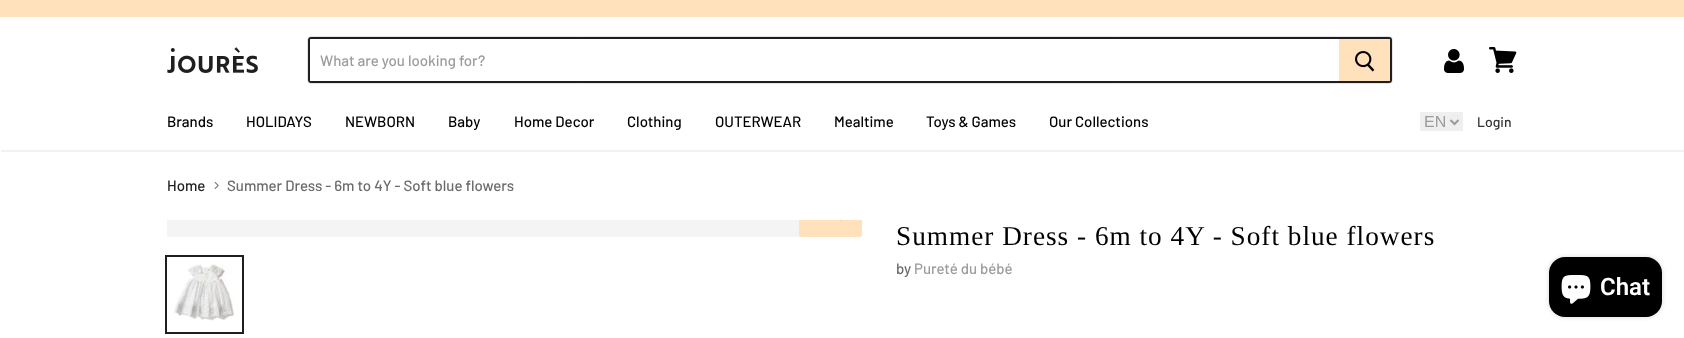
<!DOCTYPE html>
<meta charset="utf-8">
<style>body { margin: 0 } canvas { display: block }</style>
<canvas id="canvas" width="1684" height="338"></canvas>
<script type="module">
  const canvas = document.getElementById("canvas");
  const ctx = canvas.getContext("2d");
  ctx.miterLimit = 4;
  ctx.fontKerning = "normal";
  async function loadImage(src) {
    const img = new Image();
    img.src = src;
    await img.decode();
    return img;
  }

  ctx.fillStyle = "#ffffff";
  ctx.fillRect(0, 0, 1684, 338);
  ctx.fillStyle = "#ffe1bb";
  ctx.fillRect(0, 0, 1684, 17);
  ctx.fillStyle = "#f2f2f2";
  ctx.beginPath();
  ctx.moveTo(1, 150);
  ctx.lineTo(1, 152);
  ctx.lineTo(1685, 152);
  ctx.lineTo(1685, 19);
  ctx.lineTo(1684, 19);
  ctx.lineTo(1684, 150);
  ctx.closePath();
  ctx.fill();
  ctx.drawImage(await loadImage("img1.png"), 167, 47, 91, 26);
  ctx.beginPath();
  ctx.roundRect(307.5, 36.5, 1085, 47, 3.5);
  ctx.strokeStyle = "#e5e5e5";
  ctx.stroke();
  ctx.fillStyle = "#ffffff";
  ctx.beginPath();
  ctx.roundRect(308, 37, 1031, 46, [3, 0, 0, 3]);
  ctx.fill();
  ctx.fillStyle = "#1f1f1f";
  ctx.beginPath();
  ctx.moveTo(311, 37);
  ctx.lineTo(1339, 37);
  ctx.lineTo(1339, 83);
  ctx.lineTo(311, 83);
  ctx.bezierCurveTo(309, 83, 308, 82, 308, 80);
  ctx.lineTo(308, 40);
  ctx.bezierCurveTo(308, 38, 309, 37, 311, 37);
  ctx.closePath();
  ctx.moveTo(311, 39);
  ctx.lineTo(1339, 39);
  ctx.lineTo(1339, 81);
  ctx.lineTo(311, 81);
  ctx.bezierCurveTo(310, 81, 310, 81, 310, 80);
  ctx.lineTo(310, 40);
  ctx.bezierCurveTo(310, 39, 310, 39, 311, 39);
  ctx.closePath();
  ctx.fill("evenodd");
  ctx.font = "500 15px Barlow";
  ctx.fillStyle = "#9c9c9c";
  ctx.fillText("What are you looking for?", 320, 66);
  ctx.fillStyle = "#ffe1bb";
  ctx.beginPath();
  ctx.roundRect(1339, 37, 53, 46, [0, 3, 3, 0]);
  ctx.fill();
  ctx.fillStyle = "#1f1f1f";
  ctx.beginPath();
  ctx.moveTo(1339, 37);
  ctx.lineTo(1389, 37);
  ctx.bezierCurveTo(1391, 37, 1392, 38, 1392, 40);
  ctx.lineTo(1392, 80);
  ctx.bezierCurveTo(1392, 82, 1391, 83, 1389, 83);
  ctx.lineTo(1339, 83);
  ctx.closePath();
  ctx.moveTo(1339, 39);
  ctx.lineTo(1389, 39);
  ctx.bezierCurveTo(1390, 39, 1390, 39, 1390, 40);
  ctx.lineTo(1390, 80);
  ctx.bezierCurveTo(1390, 81, 1390, 81, 1389, 81);
  ctx.lineTo(1339, 81);
  ctx.closePath();
  ctx.fill("evenodd");
  ctx.drawImage(await loadImage("img2.png"), 1355, 51, 20, 21);
  ctx.drawImage(await loadImage("img3.png"), 1444, 49, 20, 24);
  ctx.drawImage(await loadImage("img4.png"), 1489, 47, 28, 26);
  ctx.fillStyle = "#000000";
  ctx.fillText("Brands", 167, 127);
  ctx.fillText("HOLIDAYS", 246, 127);
  ctx.fillText("NEWBORN", 345, 127);
  ctx.fillText("Baby", 448, 127);
  ctx.fillText("Home Decor", 514, 127);
  ctx.fillText("Clothing", 627, 127);
  ctx.fillText("OUTERWEAR", 715, 127);
  ctx.fillText("Mealtime", 834, 127);
  ctx.fillText("Toys & Games", 926, 127);
  ctx.fillText("Our Collections", 1049, 127);
  ctx.fillStyle = "#efefef";
  ctx.fillRect(1420, 112, 43, 19);
  ctx.beginPath();
  ctx.moveTo(1450.5, 120);
  ctx.lineTo(1454.5, 124);
  ctx.lineTo(1458.5, 120);
  ctx.strokeStyle = "#9b9b9b";
  ctx.lineWidth = 2;
  ctx.stroke();
  ctx.font = "16px Liberation Sans";
  ctx.fillStyle = "#9c9c9c";
  ctx.fillText("EN", 1424, 127);
  ctx.font = "500 14px Barlow";
  ctx.fillStyle = "#333333";
  ctx.fillText("Login", 1477, 127);
  ctx.font = "500 15px Barlow";
  ctx.fillStyle = "#202020";
  ctx.fillText("Home", 167, 191);
  ctx.drawImage(await loadImage("img5.png"), 214, 181, 5, 8);
  ctx.fillStyle = "#6d6a6a";
  ctx.fillText("Summer Dress - 6m to 4Y - Soft blue flowers", 227, 191);
  ctx.fillStyle = "#f4f4f4";
  ctx.fillRect(167, 220, 695, 17);
  ctx.fillStyle = "#ffe1bb";
  ctx.beginPath();
  ctx.roundRect(799, 220, 63, 17, [0, 0, 3, 3]);
  ctx.fill();
  ctx.fillStyle = "#e6cba8";
  ctx.fillRect(840, 220, 1, 1);
  ctx.strokeStyle = "#1f1f1f";
  ctx.strokeRect(166, 256, 77, 77);
  ctx.drawImage(await loadImage("img6.png"), 173, 264, 62, 57);
  ctx.letterSpacing = "1px";
  ctx.font = "27.25px Liberation Serif";
  ctx.fillStyle = "#000000";
  ctx.fillText("Summer Dress - 6m to 4Y - Soft blue flowers", 896, 245);
  ctx.letterSpacing = "0px";
  ctx.font = "500 15px Barlow";
  ctx.fillStyle = "#6d6a6a";
  ctx.fillText("by", 896, 274);
  ctx.fillStyle = "#9c9c9c";
  ctx.fillText("Pureté du bébé", 914, 274);
  ctx.fillStyle = "rgba(0, 0, 0, 0.15)";
  ctx.filter = "blur(2.5px)";
  ctx.beginPath();
  ctx.roundRect(1549, 257, 113, 60, 16);
  ctx.fill();
  ctx.filter = "none";
  ctx.fillStyle = "#000000";
  ctx.beginPath();
  ctx.roundRect(1549, 257, 113, 60, 16);
  ctx.fill();
  ctx.drawImage(await loadImage("img7.png"), 1561, 275, 30, 29);
  ctx.font = "600 24px Roboto";
  ctx.fillStyle = "#ffffff";
  ctx.fillText("Chat", 1600, 295);
</script>
